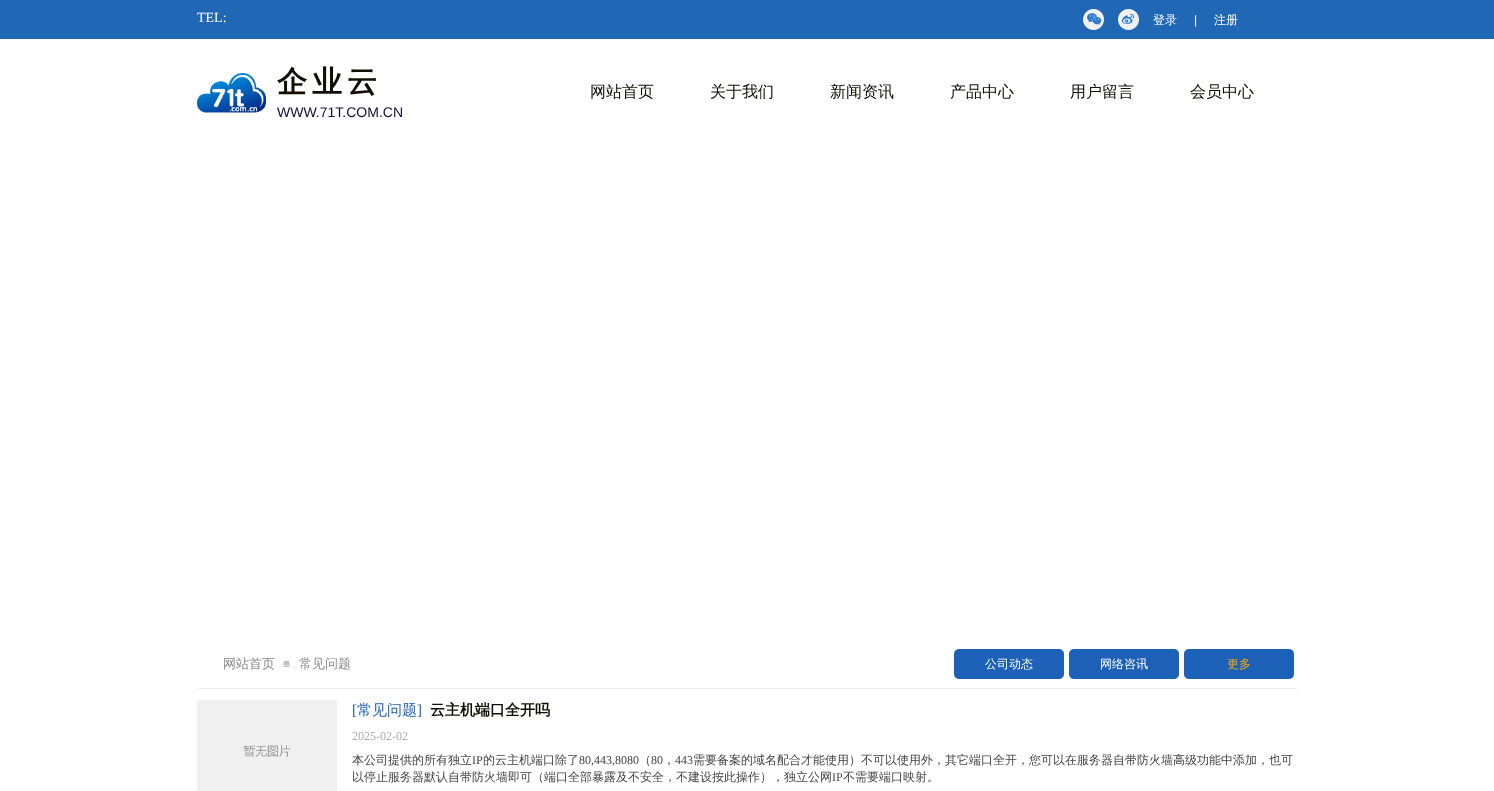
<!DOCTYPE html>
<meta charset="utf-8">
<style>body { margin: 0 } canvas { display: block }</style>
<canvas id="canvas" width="1494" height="791"></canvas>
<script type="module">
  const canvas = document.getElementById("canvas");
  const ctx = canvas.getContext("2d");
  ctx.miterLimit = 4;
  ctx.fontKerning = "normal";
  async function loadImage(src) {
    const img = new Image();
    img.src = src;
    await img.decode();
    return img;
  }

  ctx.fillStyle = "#ffffff";
  ctx.fillRect(0, 0, 1494, 791);
  ctx.fillStyle = "#2067b6";
  ctx.fillRect(0, 0, 1494, 39);
  ctx.font = "14px Liberation Serif";
  ctx.fillStyle = "#ffffff";
  ctx.fillText("TEL:", 197, 22);
  ctx.drawImage(await loadImage("img1.png"), 1083, 9, 21, 21);
  ctx.drawImage(await loadImage("img2.png"), 1118, 9, 21, 21);
  ctx.font = "500 12px WenQuanYi Zen Hei";
  ctx.fillText("登录", 1153, 24);
  ctx.font = "12px Liberation Sans";
  ctx.fillText("|", 1194, 24);
  ctx.font = "500 12px WenQuanYi Zen Hei";
  ctx.fillText("注册", 1214, 24);
  ctx.drawImage(await loadImage("img3.png"), 197, 73, 69, 40);
  ctx.letterSpacing = "5px";
  ctx.font = "bold 30px WenQuanYi Zen Hei";
  ctx.fillStyle = "#110e02";
  ctx.fillText("企业云", 277, 92);
  ctx.letterSpacing = "0px";
  ctx.font = "500 16px WenQuanYi Zen Hei";
  ctx.fillText("网站首页", 590, 97);
  ctx.fillText("关于我们", 710, 97);
  ctx.fillText("新闻资讯", 830, 97);
  ctx.fillText("产品中心", 950, 97);
  ctx.fillText("用户留言", 1070, 97);
  ctx.fillText("会员中心", 1190, 97);
  ctx.font = "14px Liberation Sans";
  ctx.fillStyle = "#110e31";
  ctx.fillText("WWW.71T.COM.CN", 277, 117);
  ctx.font = "500 13px WenQuanYi Zen Hei";
  ctx.fillStyle = "#888888";
  ctx.fillText("网站首页", 223, 668);
  ctx.font = "12px Liberation Sans";
  ctx.fillText("≡", 283, 668);
  ctx.font = "500 13px WenQuanYi Zen Hei";
  ctx.fillText("常见问题", 299, 668);
  ctx.drawImage(await loadImage("img4.png"), 954, 649, 110, 30);
  ctx.font = "500 12px WenQuanYi Zen Hei";
  ctx.fillStyle = "#ffffff";
  ctx.fillText("公司动态", 985, 668);
  ctx.drawImage(await loadImage("img4.png"), 1069, 649, 110, 30);
  ctx.fillText("网络咨讯", 1100, 668);
  ctx.drawImage(await loadImage("img4.png"), 1184, 649, 110, 30);
  ctx.fillStyle = "#ffa900";
  ctx.fillText("更多", 1227, 668);
  ctx.fillStyle = "#ededed";
  ctx.fillRect(197, 688, 1100, 1);
  ctx.drawImage(await loadImage("img5.png"), 197, 700, 140, 91);
  ctx.font = "15px Liberation Serif";
  ctx.fillStyle = "#1c60b8";
  ctx.fillText("[", 352, 715);
  ctx.font = "500 15px WenQuanYi Zen Hei";
  ctx.fillText("常见问题", 357, 715);
  ctx.font = "15px Liberation Serif";
  ctx.fillText("]", 417, 715);
  ctx.font = "bold 15px WenQuanYi Zen Hei";
  ctx.fillStyle = "#110e02";
  ctx.fillText("云主机端口全开吗", 430, 715);
  ctx.font = "12px Liberation Serif";
  ctx.fillStyle = "#acacac";
  ctx.fillText("2025-02-02", 352, 740);
  ctx.font = "500 12px WenQuanYi Zen Hei";
  ctx.fillStyle = "#444444";
  ctx.fillText("本公司提供的所有独立", 352, 764);
  ctx.font = "12px Liberation Serif";
  ctx.fillText("IP", 472, 764);
  ctx.font = "500 12px WenQuanYi Zen Hei";
  ctx.fillText("的云主机端口除了", 483, 764);
  ctx.font = "12px Liberation Serif";
  ctx.fillText("80,443,8080", 579, 764);
  ctx.font = "500 12px WenQuanYi Zen Hei";
  ctx.fillText("（", 639, 764);
  ctx.font = "12px Liberation Serif";
  ctx.fillText("80", 651, 764);
  ctx.font = "500 12px WenQuanYi Zen Hei";
  ctx.fillText("，", 663, 764);
  ctx.font = "12px Liberation Serif";
  ctx.fillText("443", 675, 764);
  ctx.font = "500 12px WenQuanYi Zen Hei";
  ctx.fillText("需要备案的域名配合才能使用）不可以使用外，其它端口全开，您可以在服务器自带防火墙高级功能中添加，也可", 693, 764);
  ctx.fillText("以停止服务器默认自带防火墙即可（端口全部暴露及不安全，不建设按此操作），独立公网", 352, 781);
  ctx.font = "12px Liberation Serif";
  ctx.fillText("IP", 832, 781);
  ctx.font = "500 12px WenQuanYi Zen Hei";
  ctx.fillText("不需要端口映射。", 843, 781);
</script>
